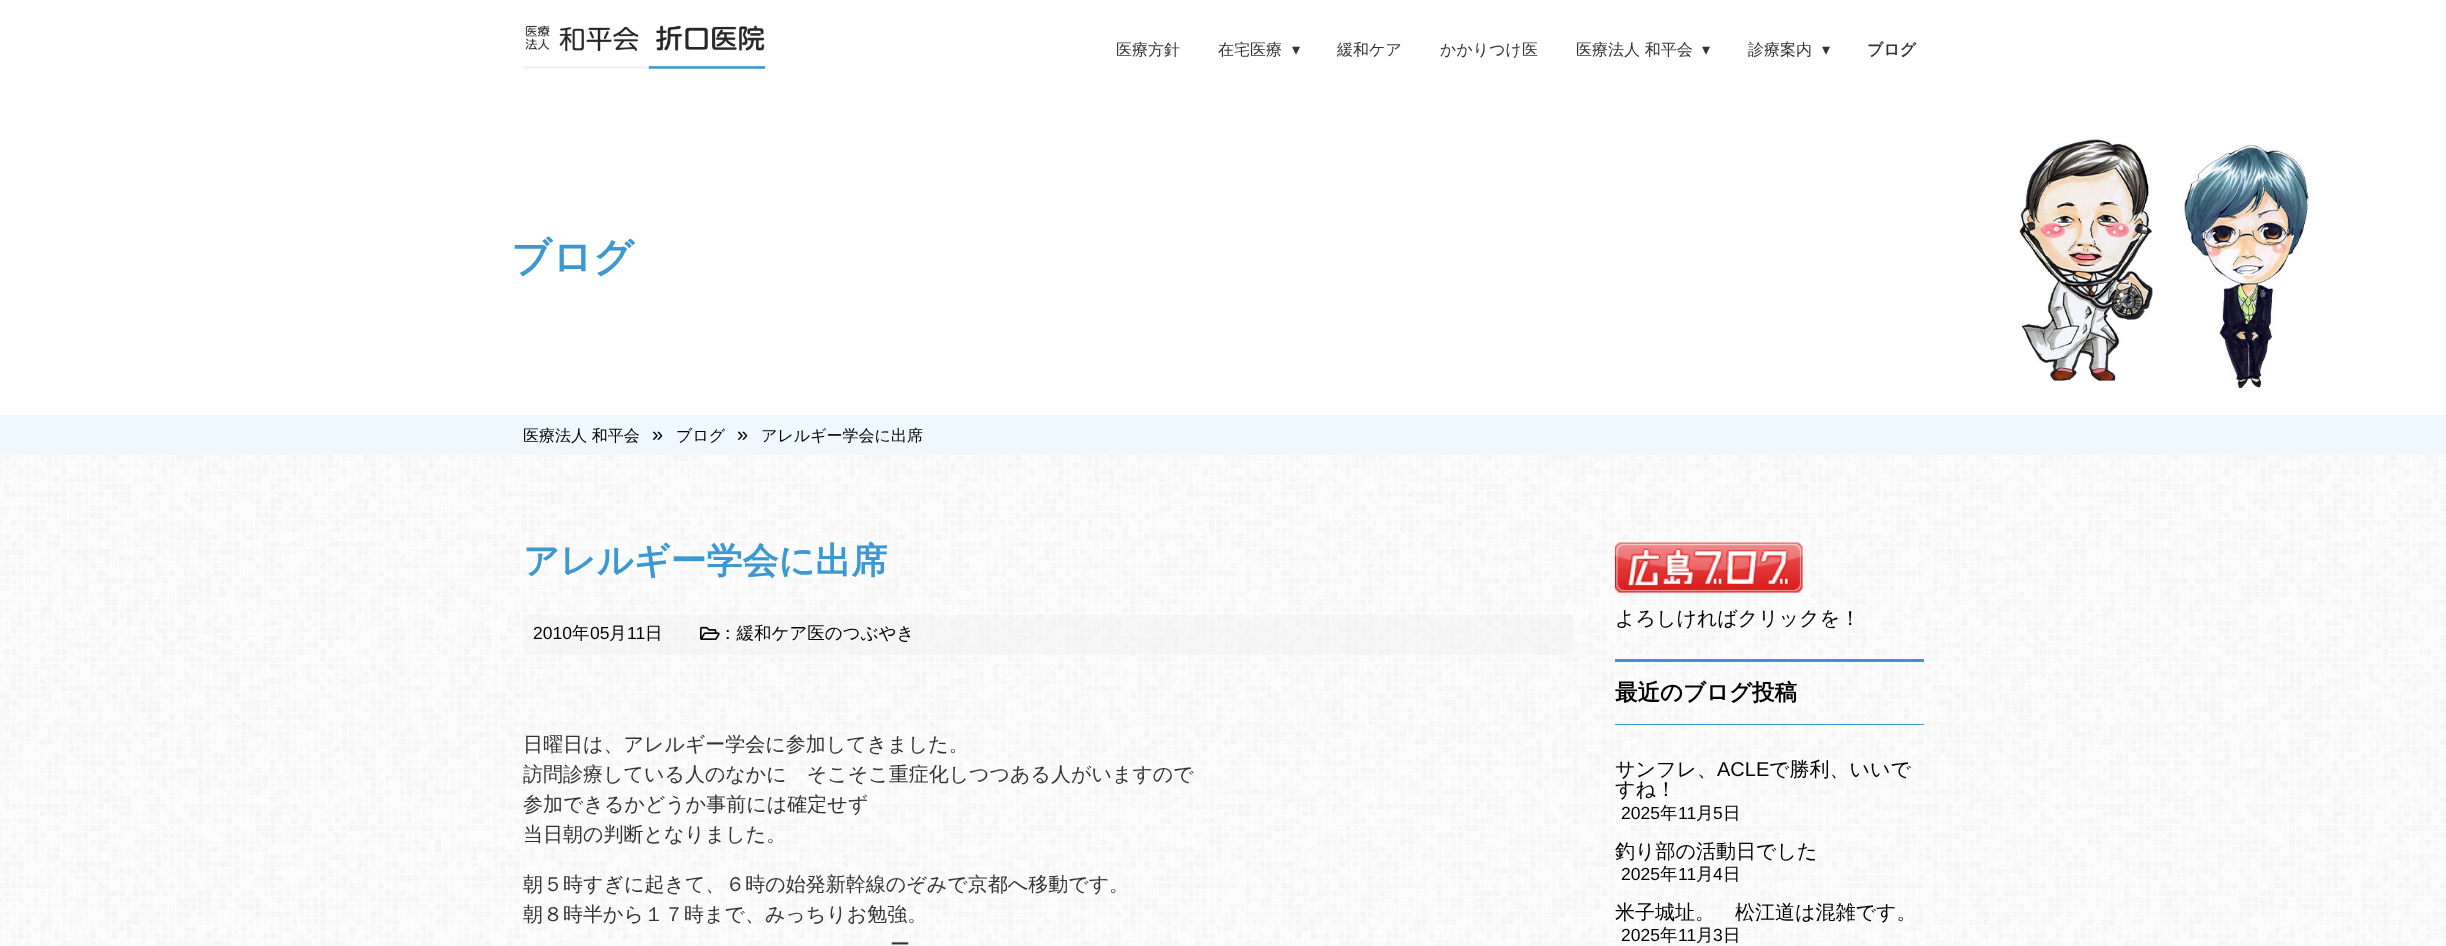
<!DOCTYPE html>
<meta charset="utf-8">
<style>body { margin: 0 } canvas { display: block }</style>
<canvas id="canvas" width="2446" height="946"></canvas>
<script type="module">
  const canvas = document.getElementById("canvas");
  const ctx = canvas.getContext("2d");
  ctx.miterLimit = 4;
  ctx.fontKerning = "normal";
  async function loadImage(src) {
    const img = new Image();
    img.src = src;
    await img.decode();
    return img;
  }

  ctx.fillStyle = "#ffffff";
  ctx.fillRect(0, 0, 2446, 946);
  ctx.drawImage(await loadImage("img1.png"), 524, 25, 241, 44);
  ctx.font = "500 16px WenQuanYi Zen Hei";
  ctx.fillStyle = "#333333";
  ctx.fillText("医療方針", 1116, 55);
  ctx.fillText("在宅医療", 1218, 55);
  ctx.font = "16px DejaVu Sans";
  ctx.fillText("▾", 1292, 55);
  ctx.font = "500 16px WenQuanYi Zen Hei";
  ctx.fillText("緩和ケア", 1337, 55);
  ctx.fillText("かかりつけ医", 1440, 55);
  ctx.fillText("医療法人 和平会", 1576, 55);
  ctx.font = "16px DejaVu Sans";
  ctx.fillText("▾", 1702, 55);
  ctx.font = "500 16px WenQuanYi Zen Hei";
  ctx.fillText("診療案内", 1748, 55);
  ctx.font = "16px DejaVu Sans";
  ctx.fillText("▾", 1822, 55);
  ctx.font = "bold 16px WenQuanYi Zen Hei";
  ctx.fillText("ブログ", 1867, 55);
  ctx.drawImage(await loadImage("img2.png"), 0, 455, 2446, 491);
  ctx.drawImage(await loadImage("img3.png"), 2018, 135, 293, 258);
  ctx.font = "bold 40px WenQuanYi Zen Hei";
  ctx.fillStyle = "#3c98d1";
  ctx.fillText("ブログ", 511, 271);
  ctx.fillStyle = "#f0f8ff";
  ctx.fillRect(0, 415, 2446, 40);
  ctx.font = "500 16px WenQuanYi Zen Hei";
  ctx.fillStyle = "#000000";
  ctx.fillText("医療法人 和平会", 523, 441);
  ctx.font = "20px Liberation Sans";
  ctx.fillText("»", 652, 441);
  ctx.font = "500 16px WenQuanYi Zen Hei";
  ctx.fillText("ブログ", 676, 441);
  ctx.font = "20px Liberation Sans";
  ctx.fillText("»", 737, 441);
  ctx.font = "500 16px WenQuanYi Zen Hei";
  ctx.fillText("アレルギー学会に出席", 761, 441);
  ctx.font = "bold 36px WenQuanYi Zen Hei";
  ctx.fillStyle = "#3c98d1";
  ctx.fillText("アレルギー学会に出席", 523, 573);
  ctx.fillStyle = "rgba(241, 241, 241, 0.4)";
  ctx.fillRect(524, 615, 1050, 40);
  ctx.font = "17.5px Liberation Sans";
  ctx.fillStyle = "#000000";
  ctx.fillText("2010", 533, 639);
  ctx.font = "500 17.5px WenQuanYi Zen Hei";
  ctx.fillText("年", 572, 639);
  ctx.font = "17.5px Liberation Sans";
  ctx.fillText("05", 590, 639);
  ctx.font = "500 17.5px WenQuanYi Zen Hei";
  ctx.fillText("月", 609, 639);
  ctx.font = "17.5px Liberation Sans";
  ctx.fillText("11", 627, 639);
  ctx.font = "500 17.5px WenQuanYi Zen Hei";
  ctx.fillText("日", 645, 639);
  ctx.drawImage(await loadImage("img4.png"), 700, 626, 20, 14);
  ctx.fillText("：緩和ケア医のつぶやき", 719, 639);
  ctx.font = "500 20px WenQuanYi Zen Hei";
  ctx.fillStyle = "#333333";
  ctx.fillText("日曜日は、アレルギー学会に参加してきました。", 523, 751);
  ctx.fillText("訪問診療している人のなかに　そこそこ重症化しつつある人がいますので", 523, 781);
  ctx.fillText("参加できるかどうか事前には確定せず", 523, 811);
  ctx.fillText("当日朝の判断となりました。", 523, 841);
  ctx.fillText("朝５時すぎに起きて、６時の始発新幹線のぞみで京都へ移動です。", 523, 891);
  ctx.fillText("朝８時半から１７時まで、みっちりお勉強。", 523, 921);
  ctx.fillText("ー", 890, 951);
  ctx.drawImage(await loadImage("img5.png"), 1615, 542, 188, 51);
  ctx.fillStyle = "#000000";
  ctx.fillText("よろしければクリックを！", 1615, 625);
  ctx.fillStyle = "#3c98d1";
  ctx.fillRect(1615, 659, 309, 3);
  ctx.fillRect(1615, 724, 309, 1);
  ctx.font = "bold 22.5px WenQuanYi Zen Hei";
  ctx.fillStyle = "#000000";
  ctx.fillText("最近のブログ投稿", 1615, 700);
  ctx.font = "500 20px WenQuanYi Zen Hei";
  ctx.fillText("サンフレ、", 1615, 776);
  ctx.font = "20px Liberation Sans";
  ctx.fillText("ACLE", 1717, 776);
  ctx.font = "500 20px WenQuanYi Zen Hei";
  ctx.fillText("で勝利、いいで", 1769, 776);
  ctx.fillText("すね！", 1615, 796);
  ctx.font = "17.5px Liberation Sans";
  ctx.fillText("2025", 1621, 819);
  ctx.font = "500 17.5px WenQuanYi Zen Hei";
  ctx.fillText("年", 1660, 819);
  ctx.font = "17.5px Liberation Sans";
  ctx.fillText("11", 1678, 819);
  ctx.font = "500 17.5px WenQuanYi Zen Hei";
  ctx.fillText("月", 1696, 819);
  ctx.font = "17.5px Liberation Sans";
  ctx.fillText("5", 1713, 819);
  ctx.font = "500 17.5px WenQuanYi Zen Hei";
  ctx.fillText("日", 1723, 819);
  ctx.font = "500 20px WenQuanYi Zen Hei";
  ctx.fillText("釣り部の活動日でした", 1615, 858);
  ctx.font = "17.5px Liberation Sans";
  ctx.fillText("2025", 1621, 880);
  ctx.font = "500 17.5px WenQuanYi Zen Hei";
  ctx.fillText("年", 1660, 880);
  ctx.font = "17.5px Liberation Sans";
  ctx.fillText("11", 1678, 880);
  ctx.font = "500 17.5px WenQuanYi Zen Hei";
  ctx.fillText("月", 1696, 880);
  ctx.font = "17.5px Liberation Sans";
  ctx.fillText("4", 1713, 880);
  ctx.font = "500 17.5px WenQuanYi Zen Hei";
  ctx.fillText("日", 1723, 880);
  ctx.font = "500 20px WenQuanYi Zen Hei";
  ctx.fillText("米子城址。　松江道は混雑です。", 1615, 919);
  ctx.font = "17.5px Liberation Sans";
  ctx.fillText("2025", 1621, 941);
  ctx.font = "500 17.5px WenQuanYi Zen Hei";
  ctx.fillText("年", 1660, 941);
  ctx.font = "17.5px Liberation Sans";
  ctx.fillText("11", 1678, 941);
  ctx.font = "500 17.5px WenQuanYi Zen Hei";
  ctx.fillText("月", 1696, 941);
  ctx.font = "17.5px Liberation Sans";
  ctx.fillText("3", 1713, 941);
  ctx.font = "500 17.5px WenQuanYi Zen Hei";
  ctx.fillText("日", 1723, 941);
</script>
